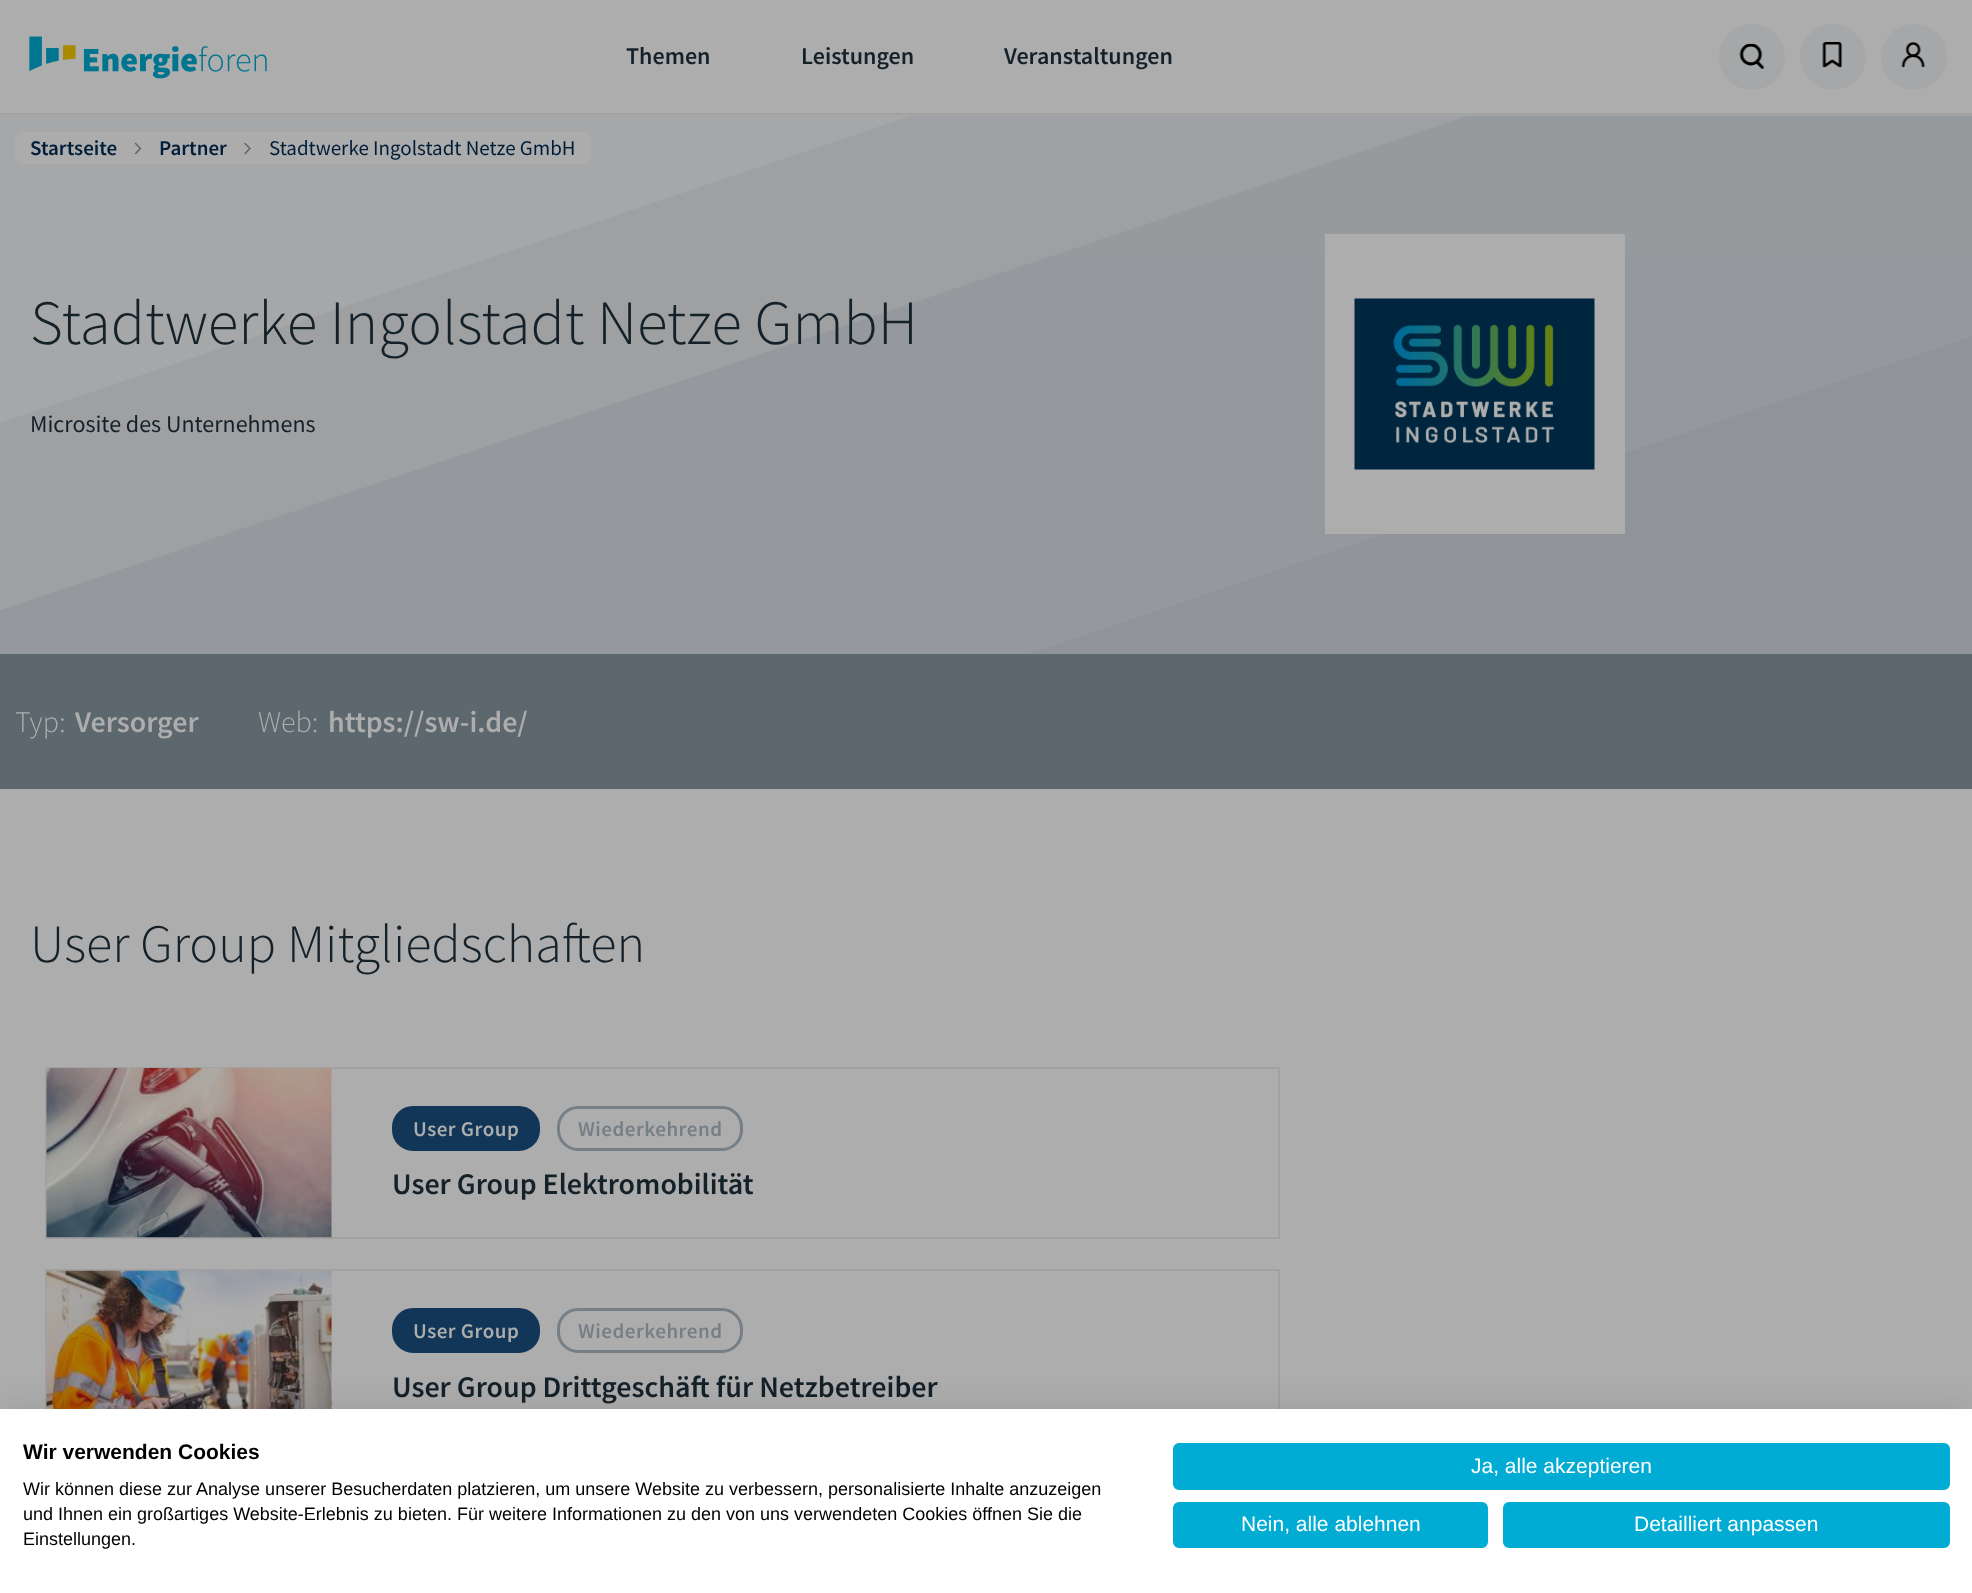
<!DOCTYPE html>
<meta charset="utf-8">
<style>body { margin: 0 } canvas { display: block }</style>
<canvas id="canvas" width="1972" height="1593"></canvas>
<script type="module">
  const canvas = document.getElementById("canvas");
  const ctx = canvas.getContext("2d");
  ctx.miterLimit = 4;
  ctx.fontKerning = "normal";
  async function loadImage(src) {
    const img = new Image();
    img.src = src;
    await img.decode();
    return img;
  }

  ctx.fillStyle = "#adadad";
  ctx.fillRect(0, 0, 1972, 1593);
  ctx.fillStyle = "#a2a2a2";
  ctx.fillRect(0, 113, 1972, 2);
  ctx.drawImage(await loadImage("img1.png"), 29, 36, 238, 43);
  ctx.font = "600 24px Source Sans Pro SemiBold";
  ctx.fillStyle = "#152129";
  ctx.fillText("Themen", 626, 64);
  ctx.fillText("Leistungen", 801, 64);
  ctx.fillText("Veranstaltungen", 1004, 64);
  ctx.fillStyle = "#a5a7a8";
  ctx.beginPath();
  ctx.arc(1752, 57, 33, 0, Math.PI * 2);
  ctx.fill();
  ctx.drawImage(await loadImage("img2.png"), 1739, 43, 26, 26);
  ctx.beginPath();
  ctx.arc(1833, 57, 33, 0, Math.PI * 2);
  ctx.fill();
  ctx.drawImage(await loadImage("img3.png"), 1822, 42, 20, 26);
  ctx.beginPath();
  ctx.arc(1914, 57, 33, 0, Math.PI * 2);
  ctx.fill();
  ctx.drawImage(await loadImage("img4.png"), 1901, 42, 24, 26);
  ctx.drawImage(await loadImage("img7.png"), 0, 115, 1972, 539);
  ctx.fillStyle = "#acacac";
  ctx.beginPath();
  ctx.roundRect(15, 132, 576, 32, 8);
  ctx.fill();
  ctx.font = "600 21px Source Sans Pro SemiBold";
  ctx.fillStyle = "#001e39";
  ctx.fillText("Startseite", 30, 155);
  ctx.drawImage(await loadImage("img5.png"), 134, 142, 8, 13);
  ctx.fillText("Partner", 159, 155);
  ctx.drawImage(await loadImage("img6.png"), 244, 142, 7, 13);
  ctx.font = "21px Source Sans Pro";
  ctx.fillText("Stadtwerke Ingolstadt Netze GmbH", 269, 155);
  ctx.font = "300 63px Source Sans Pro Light";
  ctx.fillStyle = "#152129";
  ctx.fillText("Stadtwerke Ingolstadt Netze GmbH", 30, 344);
  ctx.font = "24px Source Sans Pro";
  ctx.fillText("Microsite des Unternehmens", 30, 432);
  ctx.fillStyle = "#adadad";
  ctx.fillRect(1325, 234, 300, 300);
  ctx.drawImage(await loadImage("img8.png"), 1354, 298, 241, 172);
  ctx.fillStyle = "#5c676e";
  ctx.fillRect(0, 654, 1972, 135);
  ctx.font = "300 30px Source Sans Pro Light";
  ctx.fillStyle = "#adadad";
  ctx.fillText("Typ:", 15, 732);
  ctx.font = "600 30px Source Sans Pro SemiBold";
  ctx.fillText("Versorger", 75, 732);
  ctx.font = "300 30px Source Sans Pro Light";
  ctx.fillText("Web:", 258, 732);
  ctx.font = "600 30px Source Sans Pro SemiBold";
  ctx.fillText("https://sw-i.de/", 328, 732);
  ctx.font = "300 54px Source Sans Pro Light";
  ctx.fillStyle = "#152129";
  ctx.fillText("User Group Mitgliedschaften", 30, 962);
  ctx.strokeStyle = "#a1a1a1";
  ctx.lineWidth = 2;
  ctx.strokeRect(46, 1068, 1233, 170);
  ctx.drawImage(await loadImage("img9.png"), 46, 1068, 286, 170);
  ctx.fillStyle = "#123657";
  ctx.beginPath();
  ctx.roundRect(393.5, 1107.5, 145, 42, 19.5);
  ctx.fill();
  ctx.strokeStyle = "#123657";
  ctx.lineWidth = 3;
  ctx.stroke();
  ctx.letterSpacing = "0.5px";
  ctx.font = "600 21px Source Sans Pro SemiBold";
  ctx.fillStyle = "#adadad";
  ctx.fillText("User Group", 413, 1136);
  ctx.beginPath();
  ctx.roundRect(558.5, 1107.5, 183, 42, 19.5);
  ctx.strokeStyle = "#767e86";
  ctx.stroke();
  ctx.fillStyle = "#767e86";
  ctx.fillText("Wiederkehrend", 578, 1136);
  ctx.letterSpacing = "0px";
  ctx.font = "600 30px Source Sans Pro SemiBold";
  ctx.fillStyle = "#152129";
  ctx.fillText("User Group Elektromobilität", 392, 1194);
  ctx.strokeStyle = "#a1a1a1";
  ctx.lineWidth = 2;
  ctx.strokeRect(46, 1270, 1233, 171);
  ctx.drawImage(await loadImage("img10.png"), 46, 1270, 286, 139);
  ctx.fillStyle = "#123657";
  ctx.beginPath();
  ctx.roundRect(393.5, 1309.5, 145, 42, 19.5);
  ctx.fill();
  ctx.strokeStyle = "#123657";
  ctx.lineWidth = 3;
  ctx.stroke();
  ctx.letterSpacing = "0.5px";
  ctx.font = "600 21px Source Sans Pro SemiBold";
  ctx.fillStyle = "#adadad";
  ctx.fillText("User Group", 413, 1338);
  ctx.beginPath();
  ctx.roundRect(558.5, 1309.5, 183, 42, 19.5);
  ctx.strokeStyle = "#767e86";
  ctx.stroke();
  ctx.fillStyle = "#767e86";
  ctx.fillText("Wiederkehrend", 578, 1338);
  ctx.letterSpacing = "0px";
  ctx.font = "600 30px Source Sans Pro SemiBold";
  ctx.fillStyle = "#152129";
  ctx.fillText("User Group Drittgeschäft für Netzbetreiber", 392, 1397);
  ctx.fillStyle = "rgba(0, 0, 0, 0.1)";
  ctx.filter = "blur(18px)";
  ctx.beginPath();
  ctx.rect(0, 1409, 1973, 184);
  ctx.fill();
  ctx.filter = "none";
  ctx.fillStyle = "#ffffff";
  ctx.fillRect(0, 1409, 1972, 184);
  ctx.font = "bold 21px Liberation Sans";
  ctx.fillStyle = "#000000";
  ctx.fillText("Wir verwenden Cookies", 23, 1459);
  ctx.font = "18px Liberation Sans";
  ctx.fillText("Wir können diese zur Analyse unserer Besucherdaten platzieren, um unsere Website zu verbessern, personalisierte Inhalte anzuzeigen", 23, 1495);
  ctx.fillText("und Ihnen ein großartiges Website-Erlebnis zu bieten. Für weitere Informationen zu den von uns verwendeten Cookies öffnen Sie die", 23, 1520);
  ctx.fillText("Einstellungen.", 23, 1545);
  ctx.fillStyle = "#00acd3";
  ctx.beginPath();
  ctx.roundRect(1174, 1444, 775, 45, 5);
  ctx.fill();
  ctx.strokeStyle = "#00acd3";
  ctx.lineWidth = 2;
  ctx.stroke();
  ctx.font = "21px Liberation Sans";
  ctx.fillStyle = "#ffffff";
  ctx.fillText("Ja, alle akzeptieren", 1471, 1473);
  ctx.fillStyle = "#00acd3";
  ctx.beginPath();
  ctx.roundRect(1174, 1503, 313, 44, 5);
  ctx.fill();
  ctx.stroke();
  ctx.fillStyle = "#ffffff";
  ctx.fillText("Nein, alle ablehnen", 1241, 1531);
  ctx.fillStyle = "#00acd3";
  ctx.beginPath();
  ctx.roundRect(1504, 1503, 445, 44, 5);
  ctx.fill();
  ctx.stroke();
  ctx.fillStyle = "#ffffff";
  ctx.fillText("Detailliert anpassen", 1634, 1531);
</script>
